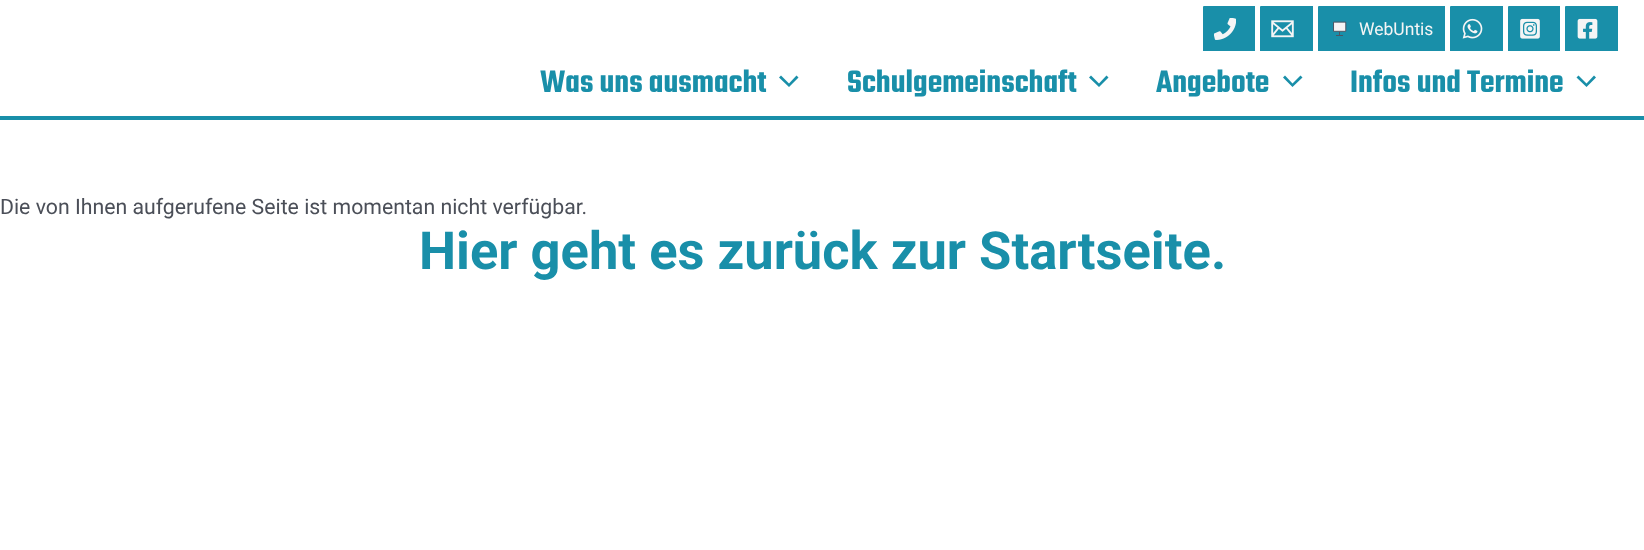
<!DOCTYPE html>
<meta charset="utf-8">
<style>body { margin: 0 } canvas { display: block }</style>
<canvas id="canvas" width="1644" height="550"></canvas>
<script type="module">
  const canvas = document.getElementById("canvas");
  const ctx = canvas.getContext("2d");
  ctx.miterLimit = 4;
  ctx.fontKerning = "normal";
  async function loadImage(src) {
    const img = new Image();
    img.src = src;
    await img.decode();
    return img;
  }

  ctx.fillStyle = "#ffffff";
  ctx.fillRect(0, 0, 1644, 550);
  ctx.fillStyle = "#198fa9";
  ctx.beginPath();
  ctx.roundRect(1203, 6, 52, 45, [1, 0, 0, 0]);
  ctx.fill();
  ctx.drawImage(await loadImage("img1.png"), 1214, 18, 22, 22);
  ctx.beginPath();
  ctx.roundRect(1260, 6, 53, 45, [1, 0, 0, 0]);
  ctx.fill();
  ctx.drawImage(await loadImage("img2.png"), 1271, 20, 23, 18);
  ctx.beginPath();
  ctx.roundRect(1318, 6, 127, 45, [1, 0, 0, 0]);
  ctx.fill();
  ctx.drawImage(await loadImage("img3.png"), 1333, 21, 14, 15);
  ctx.font = "17.5px Roboto";
  ctx.fillStyle = "#f5f5f5";
  ctx.fillText("WebUntis", 1359, 35);
  ctx.fillStyle = "#198fa9";
  ctx.beginPath();
  ctx.roundRect(1450, 6, 53, 45, [1, 0, 0, 0]);
  ctx.fill();
  ctx.drawImage(await loadImage("img4.png"), 1462, 18, 21, 21);
  ctx.beginPath();
  ctx.roundRect(1508, 6, 52, 45, [1, 0, 0, 0]);
  ctx.fill();
  ctx.drawImage(await loadImage("img5.png"), 1520, 18, 20, 21);
  ctx.beginPath();
  ctx.roundRect(1565, 6, 53, 45, [1, 0, 0, 0]);
  ctx.fill();
  ctx.drawImage(await loadImage("img6.png"), 1577, 18, 21, 21);
  ctx.fillRect(0, 116, 1644, 4);
  ctx.font = "600 33.75px Teko";
  ctx.fillText("Was uns ausmacht", 540, 92);
  ctx.beginPath();
  ctx.moveTo(779, 77.5);
  ctx.lineTo(789, 87);
  ctx.lineTo(798.5, 77.5);
  ctx.lineTo(796.5, 75.5);
  ctx.lineTo(789, 83.5);
  ctx.lineTo(781, 75.5);
  ctx.closePath();
  ctx.fill();
  ctx.fillText("Schulgemeinschaft", 847, 92);
  ctx.beginPath();
  ctx.moveTo(1089, 77.5);
  ctx.lineTo(1099, 87);
  ctx.lineTo(1108.5, 77.5);
  ctx.lineTo(1106.5, 75.5);
  ctx.lineTo(1099, 83.5);
  ctx.lineTo(1091, 75.5);
  ctx.closePath();
  ctx.fill();
  ctx.fillText("Angebote", 1156, 92);
  ctx.beginPath();
  ctx.moveTo(1283, 77.5);
  ctx.lineTo(1292.5, 87);
  ctx.lineTo(1302.5, 77.5);
  ctx.lineTo(1300.5, 75.5);
  ctx.lineTo(1292.5, 83.5);
  ctx.lineTo(1285, 75.5);
  ctx.closePath();
  ctx.fill();
  ctx.fillText("Infos und Termine", 1350, 92);
  ctx.beginPath();
  ctx.moveTo(1576.5, 77.5);
  ctx.lineTo(1586.5, 87);
  ctx.lineTo(1596, 77.5);
  ctx.lineTo(1594, 75.5);
  ctx.lineTo(1586.5, 83.5);
  ctx.lineTo(1578.5, 75.5);
  ctx.closePath();
  ctx.fill();
  ctx.font = "21.25px Roboto";
  ctx.fillStyle = "#4b4f58";
  ctx.fillText("Die von Ihnen aufgerufene Seite ist momentan nicht verfügbar.", 0, 214);
  ctx.font = "bold 52.5px Roboto";
  ctx.fillStyle = "#198fa9";
  ctx.fillText("Hier geht es zurück zur Startseite.", 419, 269);
</script>
